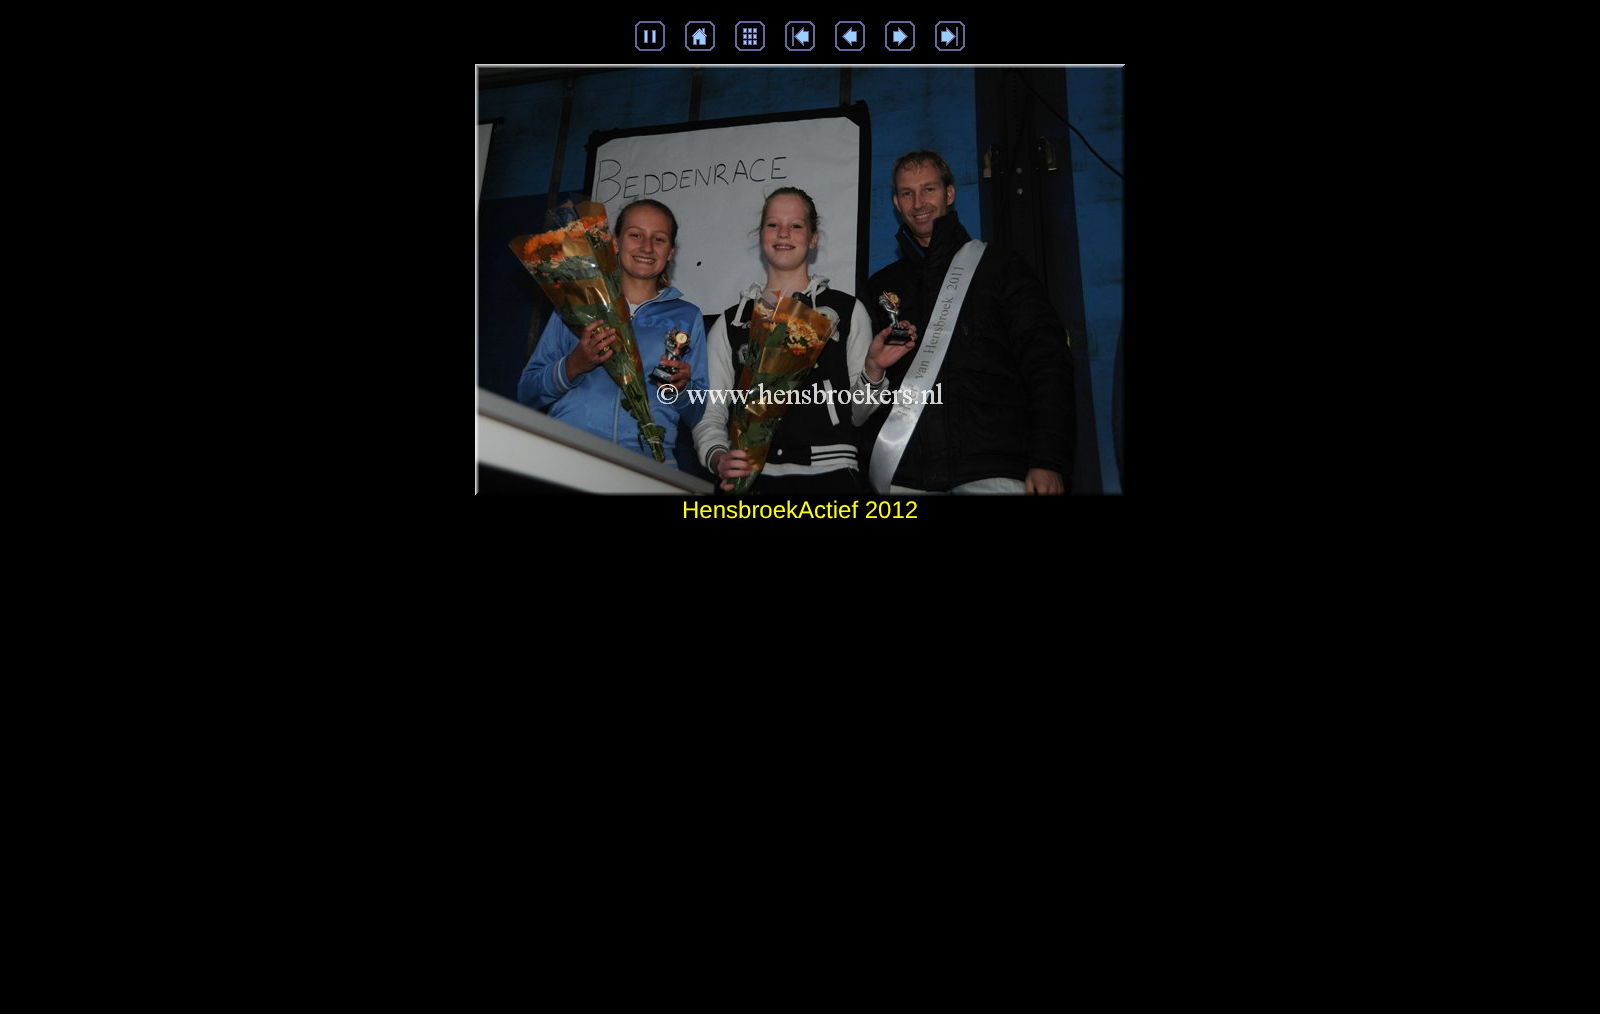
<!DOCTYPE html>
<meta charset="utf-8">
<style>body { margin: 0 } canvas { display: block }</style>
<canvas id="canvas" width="1600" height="1014"></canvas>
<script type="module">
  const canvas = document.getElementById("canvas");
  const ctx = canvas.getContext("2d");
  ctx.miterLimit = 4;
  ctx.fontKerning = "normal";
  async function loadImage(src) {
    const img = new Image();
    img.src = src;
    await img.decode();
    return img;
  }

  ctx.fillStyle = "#000000";
  ctx.fillRect(0, 0, 1600, 1014);
  ctx.drawImage(await loadImage("img1.png"), 635, 21, 30, 30);
  ctx.drawImage(await loadImage("img2.png"), 685, 21, 30, 30);
  ctx.drawImage(await loadImage("img3.png"), 735, 21, 30, 30);
  ctx.drawImage(await loadImage("img4.png"), 785, 21, 30, 30);
  ctx.drawImage(await loadImage("img5.png"), 835, 21, 30, 30);
  ctx.drawImage(await loadImage("img6.png"), 885, 21, 30, 30);
  ctx.drawImage(await loadImage("img7.png"), 935, 21, 30, 30);
  ctx.drawImage(await loadImage("img8.png"), 475, 64, 650, 432);
  ctx.font = "24px Liberation Sans";
  ctx.fillStyle = "#ffff00";
  ctx.fillText("HensbroekActief 2012", 682, 518);
</script>
